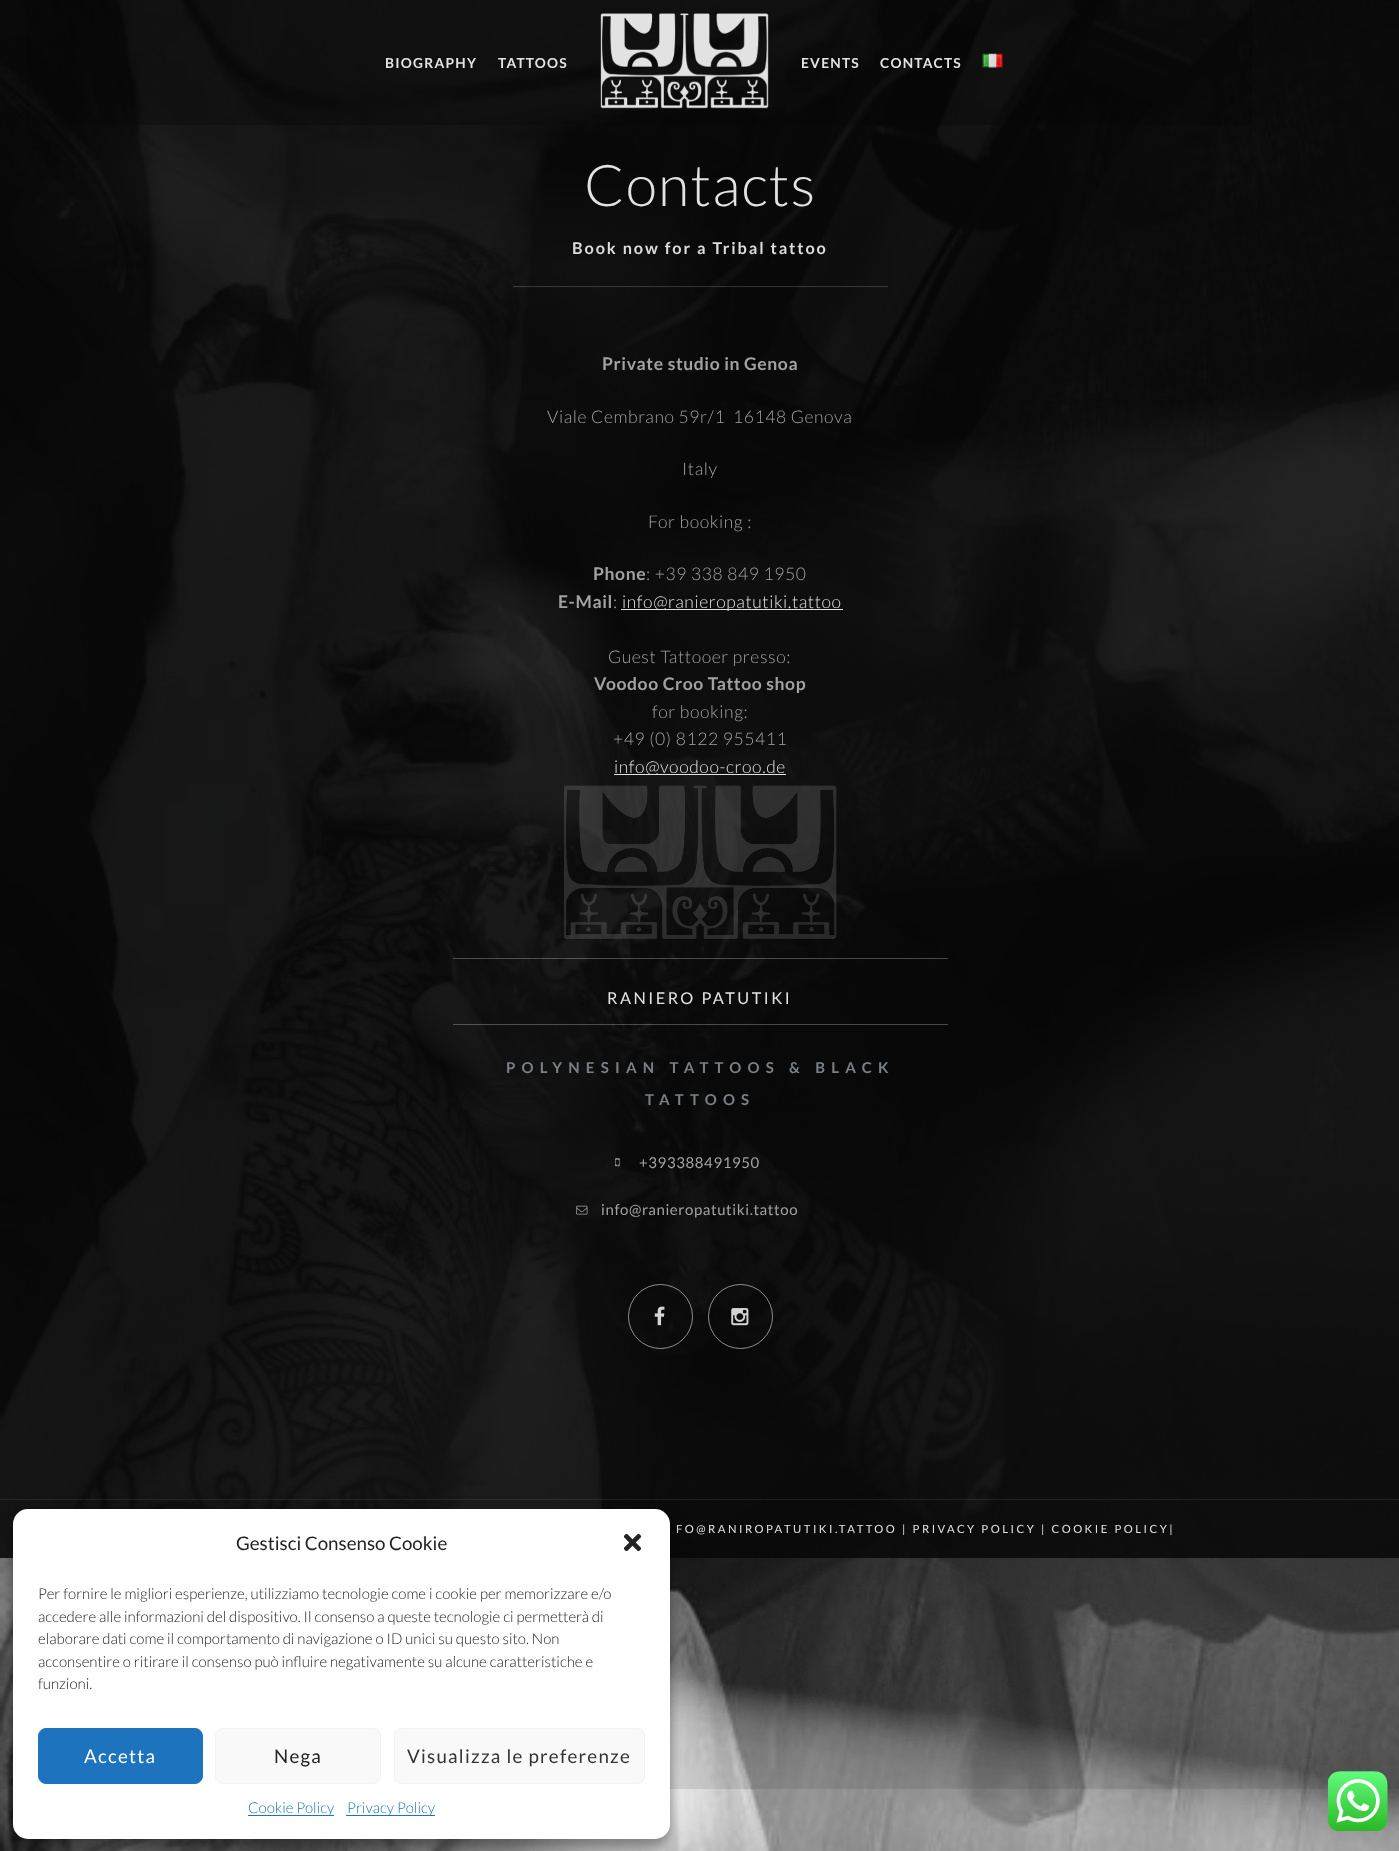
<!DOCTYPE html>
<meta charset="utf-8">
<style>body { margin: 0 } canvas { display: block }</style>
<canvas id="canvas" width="1399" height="1851"></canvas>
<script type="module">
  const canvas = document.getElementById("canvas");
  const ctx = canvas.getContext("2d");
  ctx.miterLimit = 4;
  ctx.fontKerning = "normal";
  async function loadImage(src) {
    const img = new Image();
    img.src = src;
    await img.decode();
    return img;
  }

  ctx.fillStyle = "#ffffff";
  ctx.fillRect(0, 0, 1399, 1851);
  ctx.drawImage(await loadImage("img1.png"), 0, 0, 1399, 1851);
  ctx.drawImage(await loadImage("img2.png"), 0, 0, 1399, 1851);
  ctx.fillStyle = "rgba(7, 7, 7, 0.85)";
  ctx.fillRect(0, 0, 1399, 1558);
  ctx.fillStyle = "rgba(7, 7, 7, 0.3)";
  ctx.fillRect(26, 0, 1226, 125);
  ctx.letterSpacing = "1.25px";
  ctx.font = "bold 13.75px Lato";
  ctx.fillStyle = "#e2e2e2";
  ctx.fillText("BIOGRAPHY", 385, 68);
  ctx.fillText("TATTOOS", 498, 68);
  ctx.drawImage(await loadImage("img3.png"), 600, 13, 169, 96);
  ctx.fillText("EVENTS", 801, 68);
  ctx.fillText("CONTACTS", 880, 68);
  ctx.drawImage(await loadImage("img4.png"), 982, 53, 21, 15);
  ctx.font = "300 57.5px Lato";
  ctx.fillText("Contacts", 584, 206);
  ctx.letterSpacing = "1.9px";
  ctx.font = "bold 16.25px Lato";
  ctx.fillStyle = "#dcdcdc";
  ctx.fillText("Book now for a Tribal tattoo", 572, 254);
  ctx.fillStyle = "rgba(226, 226, 226, 0.2)";
  ctx.fillRect(513, 286, 375, 1);
  ctx.letterSpacing = "0.6px";
  ctx.font = "bold 17.5px Lato";
  ctx.fillStyle = "#a2a2a2";
  ctx.fillText("Private studio in Genoa", 602, 370);
  ctx.font = "300 17.5px Lato";
  ctx.fillText("Viale Cembrano 59r/1  16148 Genova", 547, 423);
  ctx.fillText("Italy", 682, 475);
  ctx.fillText("For booking :", 648, 528);
  ctx.font = "bold 17.5px Lato";
  ctx.fillText("Phone", 593, 580);
  ctx.font = "300 17.5px Lato";
  ctx.fillText(": +39 338 849 1950", 646, 580);
  ctx.font = "bold 17.5px Lato";
  ctx.fillText("E-Mail", 558, 608);
  ctx.font = "300 17.5px Lato";
  ctx.fillText(":", 613, 608);
  ctx.fillStyle = "#e2e2e2";
  ctx.fillRect(621, 609, 222, 1);
  ctx.fillText("info@ranieropatutiki.tattoo", 622, 608);
  ctx.fillStyle = "#a2a2a2";
  ctx.fillText("Guest Tattooer presso:", 608, 663);
  ctx.font = "bold 17.5px Lato";
  ctx.fillText("Voodoo Croo Tattoo shop", 594, 690);
  ctx.font = "300 17.5px Lato";
  ctx.fillText("for booking:", 652, 718);
  ctx.fillText("+49 (0) 8122 955411", 613, 745);
  ctx.fillStyle = "#e2e2e2";
  ctx.fillRect(614, 774, 172, 1);
  ctx.fillText("info@voodoo-croo.de", 614, 773);
  ctx.fillStyle = "rgba(226, 226, 226, 0.3)";
  ctx.fillRect(453, 958, 495, 1);
  ctx.fillRect(453, 1024, 495, 1);
  ctx.letterSpacing = "2.5px";
  ctx.font = "16.25px Lato";
  ctx.fillStyle = "#e2e2e2";
  ctx.fillText("RANIERO PATUTIKI", 607, 1004);
  ctx.letterSpacing = "6.25px";
  ctx.font = "bold 15px Lato";
  ctx.fillStyle = "#7a8085";
  ctx.fillText("POLYNESIAN TATTOOS & BLACK", 506, 1073);
  ctx.fillText("TATTOOS", 645, 1105);
  ctx.drawImage(await loadImage("img5.png"), 615, 1158, 5, 9);
  ctx.letterSpacing = "0.6px";
  ctx.font = "15px Lato";
  ctx.fillStyle = "#a2a2a2";
  ctx.fillText("+393388491950", 639, 1168);
  ctx.drawImage(await loadImage("img6.png"), 576, 1205, 12, 10);
  ctx.fillText("info@ranieropatutiki.tattoo", 601, 1215);
  ctx.beginPath();
  ctx.arc(660.5, 1316.5, 32, 0, Math.PI * 2);
  ctx.strokeStyle = "rgba(226, 226, 226, 0.6)";
  ctx.stroke();
  ctx.drawImage(await loadImage("img7.png"), 654, 1306, 11, 20);
  ctx.beginPath();
  ctx.arc(740.5, 1316.5, 32, 0, Math.PI * 2);
  ctx.stroke();
  ctx.drawImage(await loadImage("img8.png"), 731, 1308, 18, 18);
  ctx.fillStyle = "rgba(226, 226, 226, 0.1)";
  ctx.fillRect(0, 1499, 1399, 1);
  ctx.letterSpacing = "2.5px";
  ctx.font = "11.25px Lato";
  ctx.fillStyle = "#e2e2e2";
  ctx.fillText("FO@RANIROPATUTIKI.TATTOO | PRIVACY POLICY | COOKIE POLICY|", 676, 1533);
  ctx.drawImage(await loadImage("img9.png"), 564, 785, 273, 154);
  ctx.fillStyle = "rgba(0, 0, 0, 0.23)";
  ctx.filter = "blur(4px)";
  ctx.beginPath();
  ctx.roundRect(13, 1516, 657, 330, 15);
  ctx.fill();
  ctx.filter = "none";
  ctx.fillStyle = "rgba(0, 0, 0, 0.19)";
  ctx.filter = "blur(12.5px)";
  ctx.beginPath();
  ctx.roundRect(13, 1521, 657, 330, 15);
  ctx.fill();
  ctx.filter = "none";
  ctx.fillStyle = "#ffffff";
  ctx.beginPath();
  ctx.roundRect(13, 1509, 657, 330, 15);
  ctx.fill();
  ctx.letterSpacing = "0px";
  ctx.font = "18.75px Lato";
  ctx.fillStyle = "#222222";
  ctx.fillText("Gestisci Consenso Cookie", 236, 1550);
  ctx.drawImage(await loadImage("img10.png"), 623, 1533, 19, 19);
  ctx.font = "300 15px Lato";
  ctx.fillText("Per fornire le migliori esperienze, utilizziamo tecnologie come i cookie per memorizzare e/o", 38, 1599);
  ctx.fillText("accedere alle informazioni del dispositivo. Il consenso a queste tecnologie ci permetterà di", 38, 1622);
  ctx.fillText("elaborare dati come il comportamento di navigazione o ID unici su questo sito. Non", 38, 1644);
  ctx.fillText("acconsentire o ritirare il consenso può influire negativamente su alcune caratteristiche e", 38, 1667);
  ctx.fillText("funzioni.", 38, 1689);
  ctx.fillStyle = "#1e73be";
  ctx.beginPath();
  ctx.roundRect(38.5, 1728.5, 164, 55, 7.5);
  ctx.fill();
  ctx.strokeStyle = "#1e73be";
  ctx.stroke();
  ctx.letterSpacing = "1.25px";
  ctx.font = "18.75px Lato";
  ctx.fillStyle = "#ffffff";
  ctx.fillText("Accetta", 84, 1763);
  ctx.fillStyle = "#f9f9f9";
  ctx.beginPath();
  ctx.roundRect(215.5, 1728.5, 165, 55, 7.5);
  ctx.fill();
  ctx.strokeStyle = "#f2f2f2";
  ctx.stroke();
  ctx.fillStyle = "#222222";
  ctx.fillText("Nega", 274, 1763);
  ctx.fillStyle = "#f9f9f9";
  ctx.beginPath();
  ctx.roundRect(394.5, 1728.5, 250, 55, 7.5);
  ctx.fill();
  ctx.stroke();
  ctx.fillStyle = "#333333";
  ctx.fillText("Visualizza le preferenze", 407, 1763);
  ctx.fillStyle = "#1e73be";
  ctx.fillRect(248, 1815, 86, 1);
  ctx.letterSpacing = "0px";
  ctx.font = "300 15px Lato";
  ctx.fillText("Cookie Policy", 248, 1813);
  ctx.fillRect(346, 1815, 89, 1);
  ctx.fillText("Privacy Policy", 347, 1813);
  ctx.drawImage(await loadImage("img11.png"), 1328, 1771, 60, 60);
</script>
